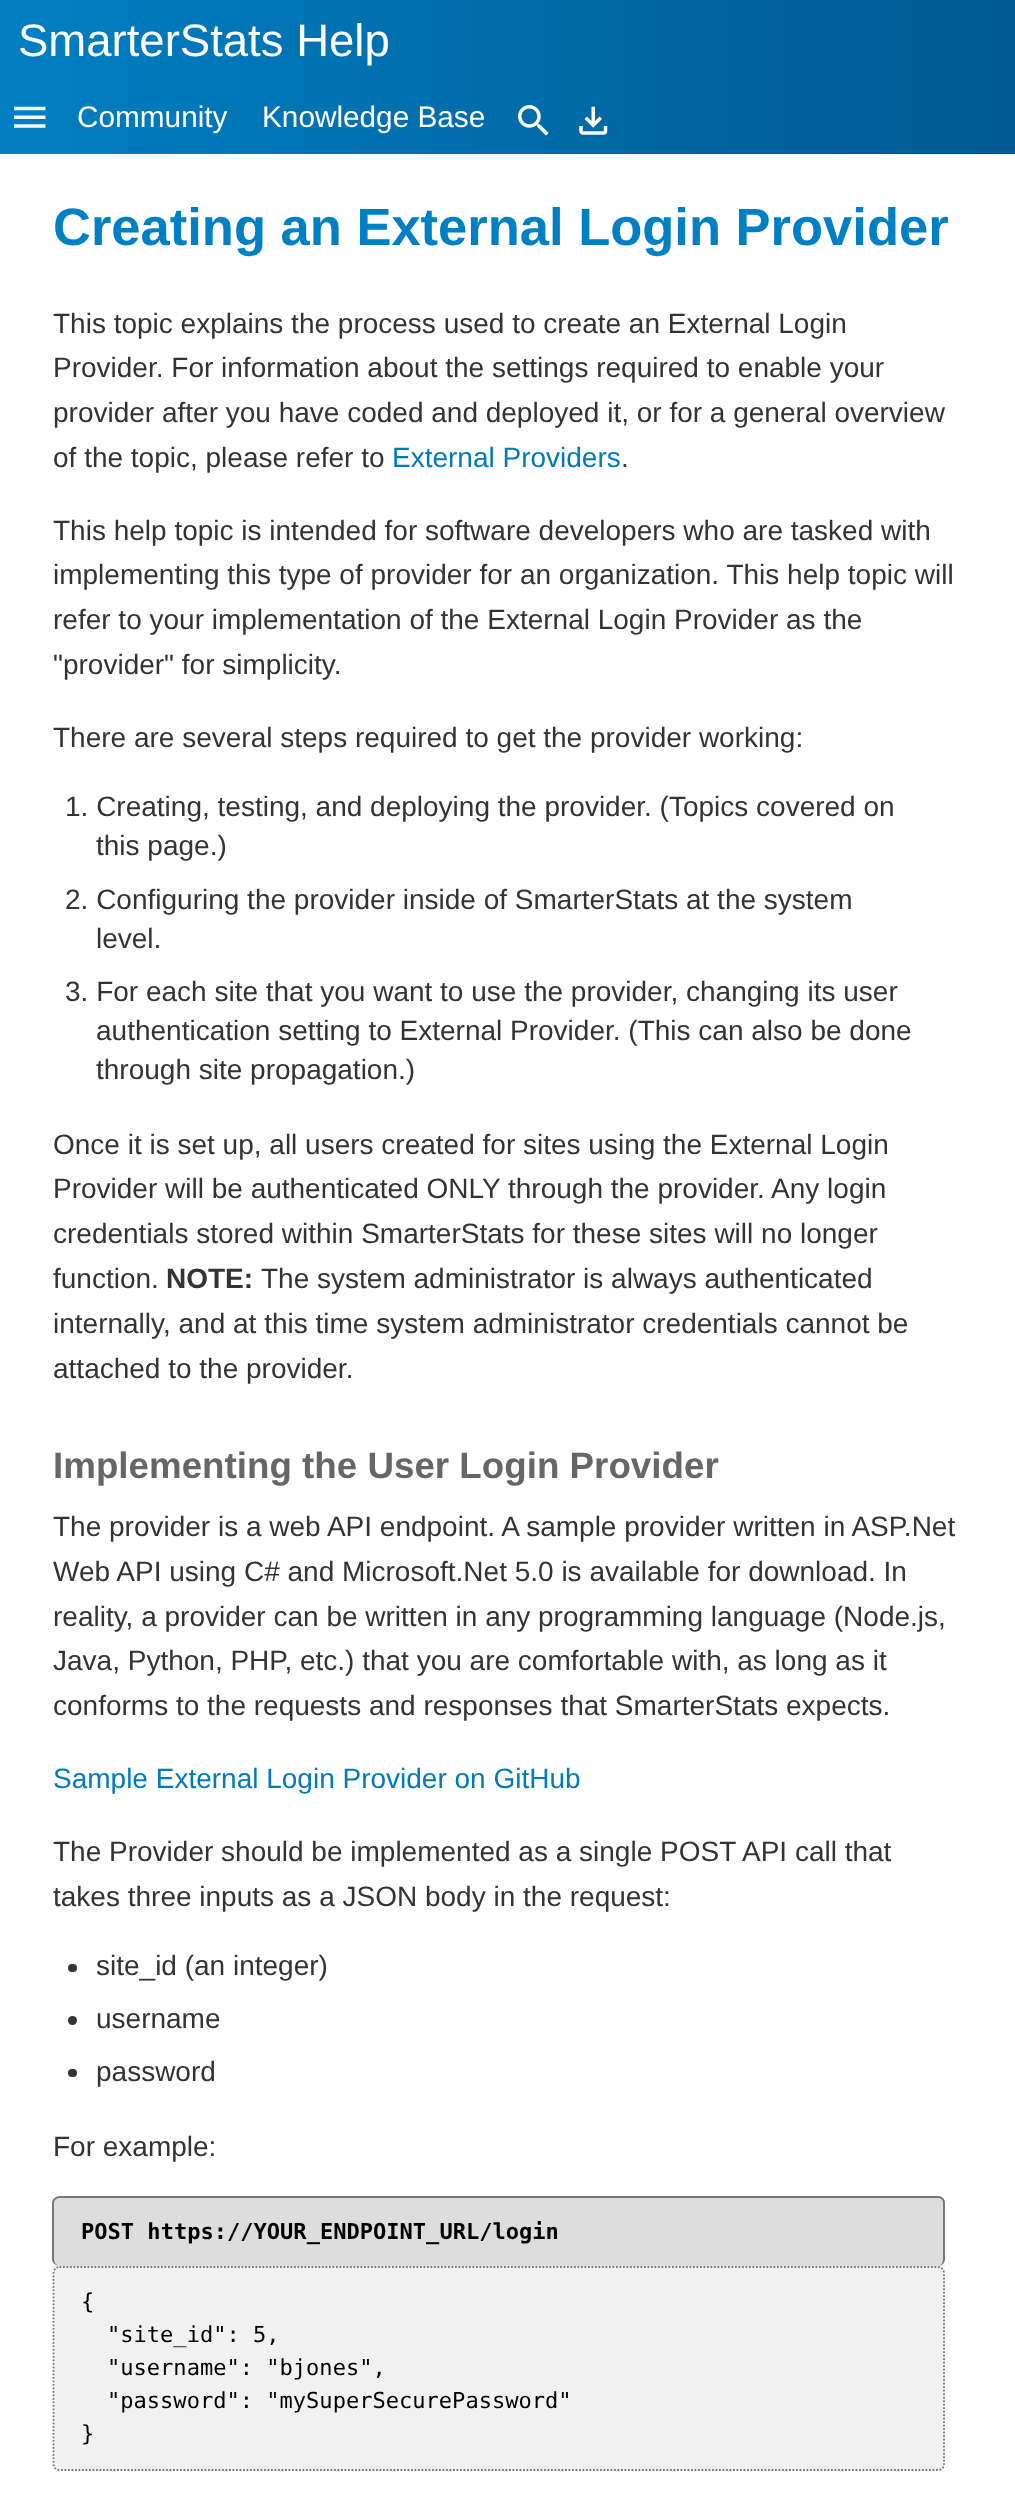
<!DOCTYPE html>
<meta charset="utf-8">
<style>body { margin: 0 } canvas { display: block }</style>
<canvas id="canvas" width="1015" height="2513"></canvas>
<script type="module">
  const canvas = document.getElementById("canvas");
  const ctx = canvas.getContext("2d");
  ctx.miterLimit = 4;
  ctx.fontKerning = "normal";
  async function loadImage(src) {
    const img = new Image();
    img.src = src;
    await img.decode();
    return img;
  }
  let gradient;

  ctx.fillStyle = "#ffffff";
  ctx.fillRect(0, 0, 1015, 2513);
  gradient = ctx.createLinearGradient(0, 77, 1015, 77);
  gradient.addColorStop(0, "#007fc2");
  gradient.addColorStop(1, "#005991");
  ctx.fillStyle = gradient;
  ctx.fillRect(0, 0, 1015, 154);
  ctx.font = "45.5px Liberation Sans";
  ctx.fillStyle = "#ffffff";
  ctx.fillText("SmarterStats Help", 18, 56);
  ctx.drawImage(await loadImage("img1.png"), 14, 106, 32, 22);
  ctx.font = "29.75px Liberation Sans";
  ctx.fillText("Community", 77, 127);
  ctx.fillText("Knowledge Base", 262, 127);
  ctx.drawImage(await loadImage("img2.png"), 518, 105, 31, 31);
  ctx.drawImage(await loadImage("img3.png"), 579, 106, 29, 29);
  ctx.font = "bold 52.5px Liberation Sans";
  ctx.fillStyle = "#0080c4";
  ctx.fillText("Creating an External Login Provider", 53, 245);
  ctx.font = "28px Liberation Sans";
  ctx.fillStyle = "#333333";
  ctx.fillText("This topic explains the process used to create an External Login", 53, 333);
  ctx.fillText("Provider. For information about the settings required to enable your", 53, 377);
  ctx.fillText("provider after you have coded and deployed it, or for a general overview", 53, 422);
  ctx.fillText("of the topic, please refer to", 53, 467);
  ctx.fillStyle = "#007ab8";
  ctx.fillText("External Providers", 392, 467);
  ctx.fillStyle = "#333333";
  ctx.fillText(".", 621, 467);
  ctx.fillText("This help topic is intended for software developers who are tasked with", 53, 540);
  ctx.fillText("implementing this type of provider for an organization. This help topic will", 53, 584);
  ctx.fillText("refer to your implementation of the External Login Provider as the", 53, 629);
  ctx.fillText("\"provider\" for simplicity.", 53, 674);
  ctx.fillText("There are several steps required to get the provider working:", 53, 747);
  ctx.fillText("1. Creating, testing, and deploying the provider. (Topics covered on", 65, 816);
  ctx.fillText("this page.)", 96, 855);
  ctx.fillText("2. Configuring the provider inside of SmarterStats at the system", 65, 909);
  ctx.fillText("level.", 96, 948);
  ctx.fillText("3. For each site that you want to use the provider, changing its user", 65, 1001);
  ctx.fillText("authentication setting to External Provider. (This can also be done", 96, 1040);
  ctx.fillText("through site propagation.)", 96, 1079);
  ctx.fillText("Once it is set up, all users created for sites using the External Login", 53, 1154);
  ctx.fillText("Provider will be authenticated ONLY through the provider. Any login", 53, 1198);
  ctx.fillText("credentials stored within SmarterStats for these sites will no longer", 53, 1243);
  ctx.fillText("function.", 53, 1288);
  ctx.font = "bold 28px Liberation Sans";
  ctx.fillText("NOTE:", 166, 1288);
  ctx.font = "28px Liberation Sans";
  ctx.fillText("The system administrator is always authenticated", 261, 1288);
  ctx.fillText("internally, and at this time system administrator credentials cannot be", 53, 1333);
  ctx.fillText("attached to the provider.", 53, 1378);
  ctx.font = "bold 36.75px Liberation Sans";
  ctx.fillStyle = "#666666";
  ctx.fillText("Implementing the User Login Provider", 53, 1478);
  ctx.font = "28px Liberation Sans";
  ctx.fillStyle = "#333333";
  ctx.fillText("The provider is a web API endpoint. A sample provider written in ASP.Net", 53, 1536);
  ctx.fillText("Web API using C# and Microsoft.Net 5.0 is available for download. In", 53, 1581);
  ctx.fillText("reality, a provider can be written in any programming language (Node.js,", 53, 1626);
  ctx.fillText("Java, Python, PHP, etc.) that you are comfortable with, as long as it", 53, 1670);
  ctx.fillText("conforms to the requests and responses that SmarterStats expects.", 53, 1715);
  ctx.fillStyle = "#007ab8";
  ctx.fillText("Sample External Login Provider on GitHub", 53, 1788);
  ctx.fillStyle = "#333333";
  ctx.fillText("The Provider should be implemented as a single POST API call that", 53, 1861);
  ctx.fillText("takes three inputs as a JSON body in the request:", 53, 1906);
  ctx.beginPath();
  ctx.roundRect(68, 1964, 9, 8, 4);
  ctx.fill();
  ctx.fillText("site_id (an integer)", 96, 1975);
  ctx.beginPath();
  ctx.arc(72.5, 2020.5, 4.5, 0, Math.PI * 2);
  ctx.fill();
  ctx.fillText("username", 96, 2028);
  ctx.beginPath();
  ctx.roundRect(68, 2069, 9, 8, 4);
  ctx.fill();
  ctx.fillText("password", 96, 2081);
  ctx.fillText("For example:", 53, 2156);
  ctx.fillStyle = "#dddddd";
  ctx.beginPath();
  ctx.roundRect(53, 2196, 892, 70, 7);
  ctx.fill();
  ctx.fillStyle = "#777777";
  ctx.beginPath();
  ctx.moveTo(60, 2196);
  ctx.lineTo(938, 2196);
  ctx.bezierCurveTo(942, 2196, 945, 2199, 945, 2203);
  ctx.lineTo(945, 2259);
  ctx.bezierCurveTo(945, 2263, 942, 2266, 938, 2266);
  ctx.lineTo(60, 2266);
  ctx.bezierCurveTo(56, 2266, 52, 2263, 52, 2259);
  ctx.lineTo(52, 2203);
  ctx.bezierCurveTo(52, 2199, 56, 2196, 60, 2196);
  ctx.closePath();
  ctx.moveTo(60, 2198);
  ctx.lineTo(938, 2198);
  ctx.bezierCurveTo(941, 2198, 943, 2200, 943, 2203);
  ctx.lineTo(943, 2259);
  ctx.bezierCurveTo(943, 2263, 941, 2266, 938, 2266);
  ctx.lineTo(60, 2266);
  ctx.bezierCurveTo(57, 2266, 54, 2263, 54, 2259);
  ctx.lineTo(54, 2203);
  ctx.bezierCurveTo(54, 2200, 57, 2198, 60, 2198);
  ctx.closePath();
  ctx.fill("evenodd");
  ctx.font = "bold 22.05px DejaVu Sans Mono";
  ctx.fillStyle = "#000000";
  ctx.fillText("POST https://YOUR_ENDPOINT_URL/login", 81, 2239);
  ctx.fillStyle = "#f1f1f1";
  ctx.beginPath();
  ctx.roundRect(53, 2266, 892, 205, 7);
  ctx.fill();
  ctx.beginPath();
  ctx.moveTo(59.5, 2267);
  ctx.lineTo(938, 2267);
  ctx.bezierCurveTo(941.5, 2267, 944, 2270, 944, 2273);
  ctx.lineTo(944, 2464);
  ctx.bezierCurveTo(944, 2467.5, 941.5, 2470, 938, 2470);
  ctx.lineTo(59.5, 2470);
  ctx.bezierCurveTo(56, 2470, 53.5, 2467.5, 53.5, 2464);
  ctx.lineTo(53.5, 2273);
  ctx.bezierCurveTo(53.5, 2270, 56, 2267, 59.5, 2267);
  ctx.closePath();
  ctx.strokeStyle = "#777777";
  ctx.lineWidth = 1.8;
  ctx.setLineDash([1.75, 1.75]);
  ctx.stroke();
  ctx.font = "22.05px DejaVu Sans Mono";
  ctx.fillStyle = "#000000";
  ctx.fillText("{", 81, 2309);
  ctx.fillText("\"site_id\": 5,", 107, 2342);
  ctx.fillText("\"username\": \"bjones\",", 107, 2375);
  ctx.fillText("\"password\": \"mySuperSecurePassword\"", 107, 2408);
  ctx.fillText("}", 81, 2441);
</script>
